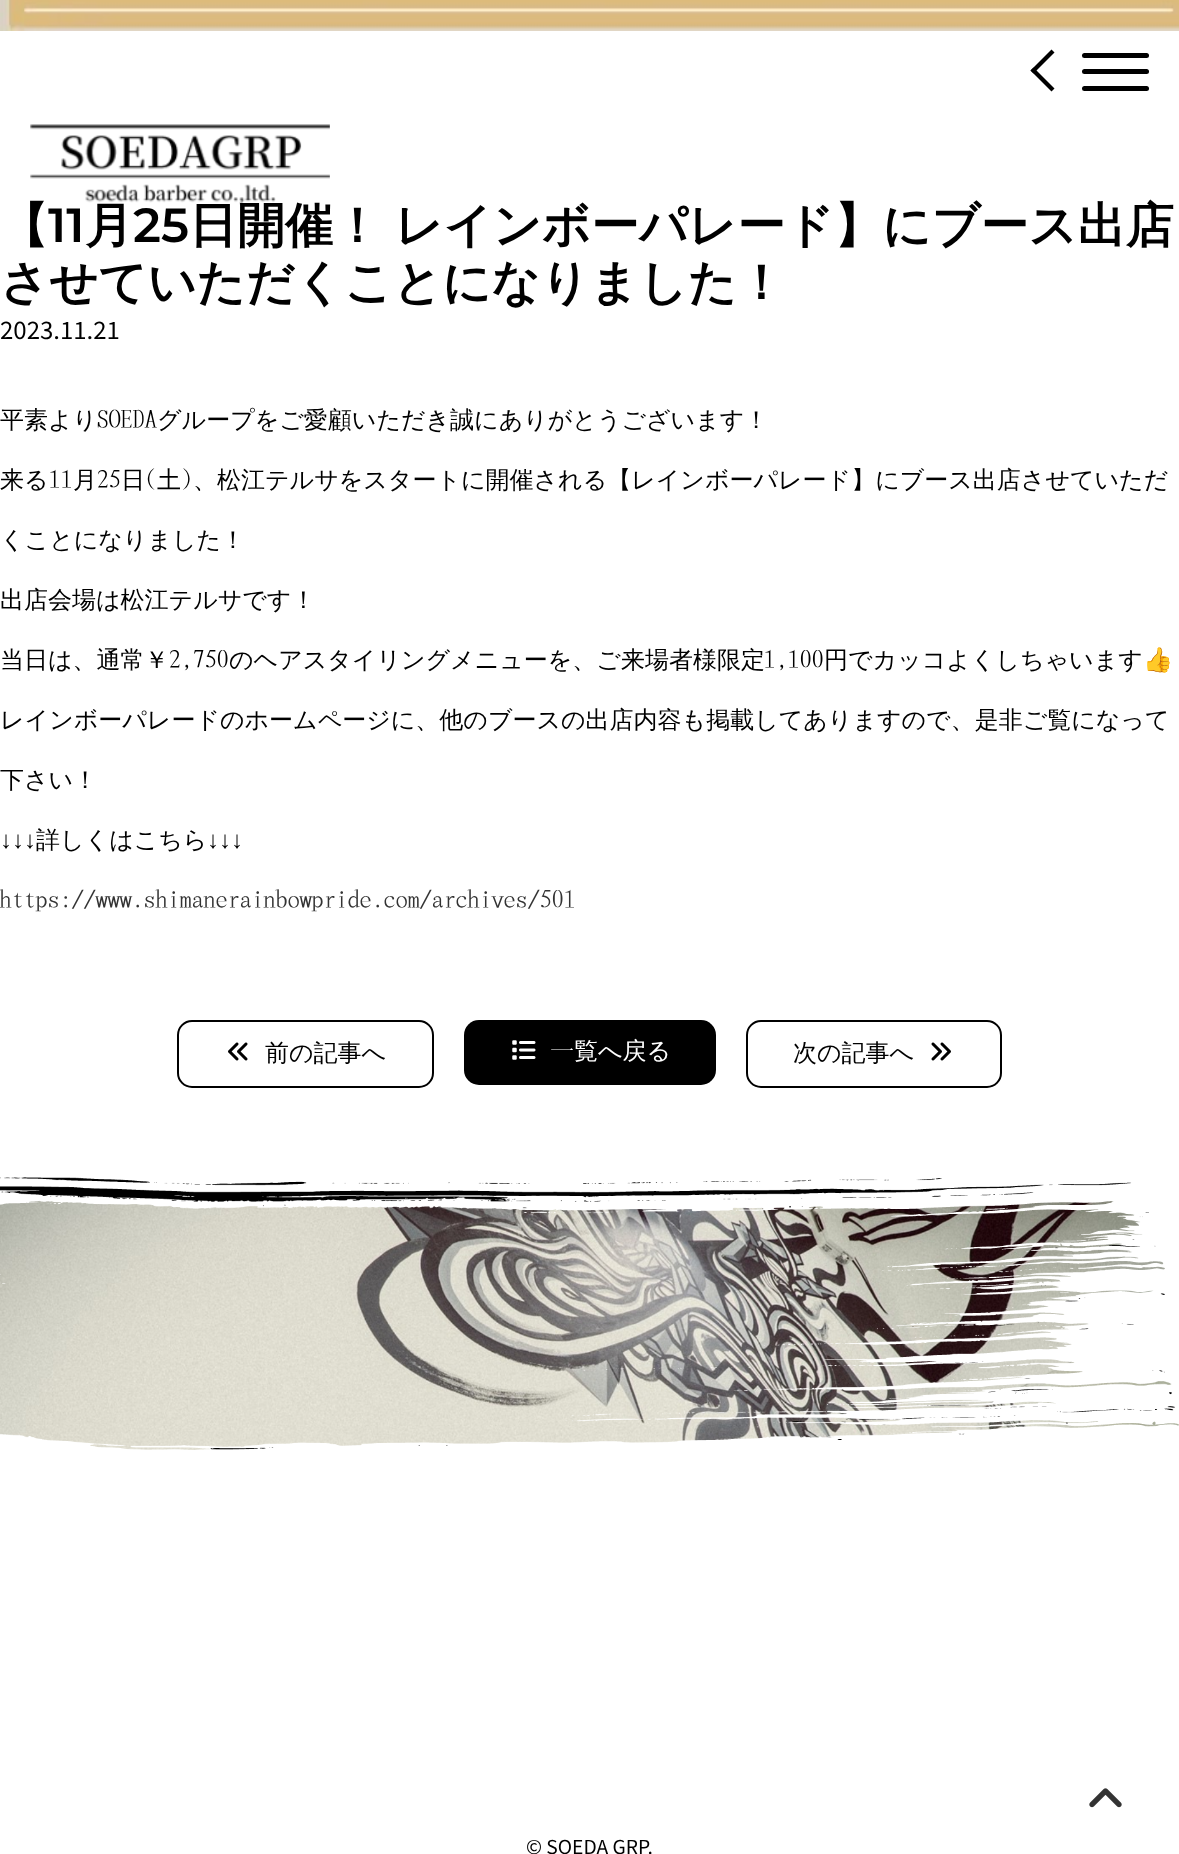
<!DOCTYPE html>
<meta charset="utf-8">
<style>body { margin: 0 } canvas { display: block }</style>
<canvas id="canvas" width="1179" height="1854"></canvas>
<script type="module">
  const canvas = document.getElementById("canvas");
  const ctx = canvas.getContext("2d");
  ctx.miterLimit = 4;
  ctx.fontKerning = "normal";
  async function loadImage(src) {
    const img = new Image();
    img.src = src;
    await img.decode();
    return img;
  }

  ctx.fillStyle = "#ffffff";
  ctx.fillRect(0, 0, 1179, 1854);
  ctx.fillStyle = "#000000";
  ctx.beginPath();
  ctx.roundRect(1082, 53, 67, 5, 2.5);
  ctx.fill();
  ctx.beginPath();
  ctx.moveTo(1051.5, 91.5);
  ctx.lineTo(1030.5, 70.5);
  ctx.lineTo(1033.5, 67.5);
  ctx.lineTo(1054.5, 88.5);
  ctx.closePath();
  ctx.fill();
  ctx.beginPath();
  ctx.moveTo(1033.5, 73.5);
  ctx.lineTo(1030.5, 70.5);
  ctx.lineTo(1051.5, 49.5);
  ctx.lineTo(1054.5, 52.5);
  ctx.closePath();
  ctx.fill();
  ctx.beginPath();
  ctx.roundRect(1082, 69, 67, 5, 2.5);
  ctx.fill();
  ctx.beginPath();
  ctx.roundRect(1082, 86, 67, 5, 2.5);
  ctx.fill();
  ctx.font = "bold 48px WenQuanYi Zen Hei";
  ctx.fillText("【", 0, 242);
  ctx.wordSpacing = "-1px";
  ctx.fillText("日開催！ レインボーパレード】にブース出店", 189, 242);
  ctx.drawImage(await loadImage("img1.png"), 30, 124, 300, 81);
  ctx.drawImage(await loadImage("img2.png"), 0, 0, 1179, 31);
  ctx.wordSpacing = "0px";
  ctx.font = "600 48px Montserrat";
  ctx.fillText("11", 48, 242);
  ctx.font = "bold 48px WenQuanYi Zen Hei";
  ctx.fillText("月", 85, 242);
  ctx.font = "600 48px Montserrat";
  ctx.fillText("25", 133, 242);
  ctx.font = "bold 48px WenQuanYi Zen Hei";
  ctx.fillText("させていただくことになりました！", 0, 299);
  ctx.font = "24px Noto Sans JP";
  ctx.fillText("2023.11.21", 0, 339);
  ctx.font = "500 24px WenQuanYi Zen Hei";
  ctx.fillText("平素より", 0, 428);
  ctx.font = "500 24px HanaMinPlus";
  ctx.fillText("SOEDA", 97, 428);
  ctx.font = "500 24px WenQuanYi Zen Hei";
  ctx.fillText("グループをご愛顧いただき誠にありがとうございます！", 157, 428);
  ctx.fillText("来る", 0, 488);
  ctx.font = "500 24px HanaMinPlus";
  ctx.fillText("11", 49, 488);
  ctx.font = "500 24px WenQuanYi Zen Hei";
  ctx.fillText("月", 73, 488);
  ctx.font = "500 24px HanaMinPlus";
  ctx.fillText("25", 97, 488);
  ctx.font = "500 24px WenQuanYi Zen Hei";
  ctx.fillText("日", 121, 488);
  ctx.font = "500 24px HanaMinPlus";
  ctx.fillText("(", 145, 488);
  ctx.font = "500 24px WenQuanYi Zen Hei";
  ctx.fillText("土", 157, 488);
  ctx.font = "500 24px HanaMinPlus";
  ctx.fillText(")", 181, 488);
  ctx.font = "500 24px WenQuanYi Zen Hei";
  ctx.fillText("、松江テルサをスタートに開催される【レインボーパレード】にブース出店させていただ", 193, 488);
  ctx.fillText("くことになりました！", 0, 548);
  ctx.fillText("出店会場は松江テルサです！", 0, 608);
  ctx.fillText("当日は、通常￥", 0, 668);
  ctx.font = "500 24px HanaMinPlus";
  ctx.fillText("2,750", 169, 668);
  ctx.font = "500 24px WenQuanYi Zen Hei";
  ctx.fillText("のヘアスタイリングメニューを、ご来場者様限定", 229, 668);
  ctx.font = "500 24px HanaMinPlus";
  ctx.fillText("1,100", 764, 668);
  ctx.font = "500 24px WenQuanYi Zen Hei";
  ctx.fillText("円でカッコよくしちゃいます", 824, 668);
  ctx.font = "24px Noto Color Emoji";
  ctx.fillText("👍", 1143, 668);
  ctx.font = "500 24px WenQuanYi Zen Hei";
  ctx.fillText("レインボーパレードのホームページに、他のブースの出店内容も掲載してありますので、是非ご覧になって", 0, 728);
  ctx.fillText("下さい！", 0, 788);
  ctx.font = "24px Liberation Serif";
  ctx.fillText("↓↓↓", 0, 848);
  ctx.font = "500 24px WenQuanYi Zen Hei";
  ctx.fillText("詳しくはこちら", 36, 848);
  ctx.font = "24px Liberation Serif";
  ctx.fillText("↓↓↓", 207, 848);
  ctx.font = "500 24px HanaMinPlus";
  ctx.fillStyle = "#333333";
  ctx.fillText("https://www.shimanerainbowpride.com/archives/501", 0, 908);
  ctx.beginPath();
  ctx.roundRect(178, 1021, 255, 66, 14);
  ctx.strokeStyle = "#000000";
  ctx.lineWidth = 2;
  ctx.stroke();
  ctx.drawImage(await loadImage("img3.png"), 228, 1042, 20, 19);
  ctx.font = "500 24px WenQuanYi Zen Hei";
  ctx.fillStyle = "#000000";
  ctx.fillText("前の記事へ", 265, 1061);
  ctx.beginPath();
  ctx.roundRect(464, 1020, 252, 65, 15);
  ctx.fill();
  ctx.drawImage(await loadImage("img4.png"), 512, 1040, 24, 20);
  ctx.font = "500 24px HanaMinPlus";
  ctx.fillStyle = "#ffffff";
  ctx.fillText("一", 550, 1059);
  ctx.font = "500 24px WenQuanYi Zen Hei";
  ctx.fillText("覧へ戻る", 574, 1059);
  ctx.beginPath();
  ctx.roundRect(747, 1021, 254, 66, 14);
  ctx.stroke();
  ctx.fillStyle = "#000000";
  ctx.fillText("次の記事へ", 793, 1061);
  ctx.drawImage(await loadImage("img5.png"), 931, 1042, 20, 19);
  ctx.drawImage(await loadImage("img6.png"), 1089, 1788, 33, 20);
  ctx.drawImage(await loadImage("img7.png"), 0, 1177, 1179, 273);
  ctx.font = "19.25px Noto Sans JP";
  ctx.fillText("© SOEDA GRP.", 526, 1854);
</script>
